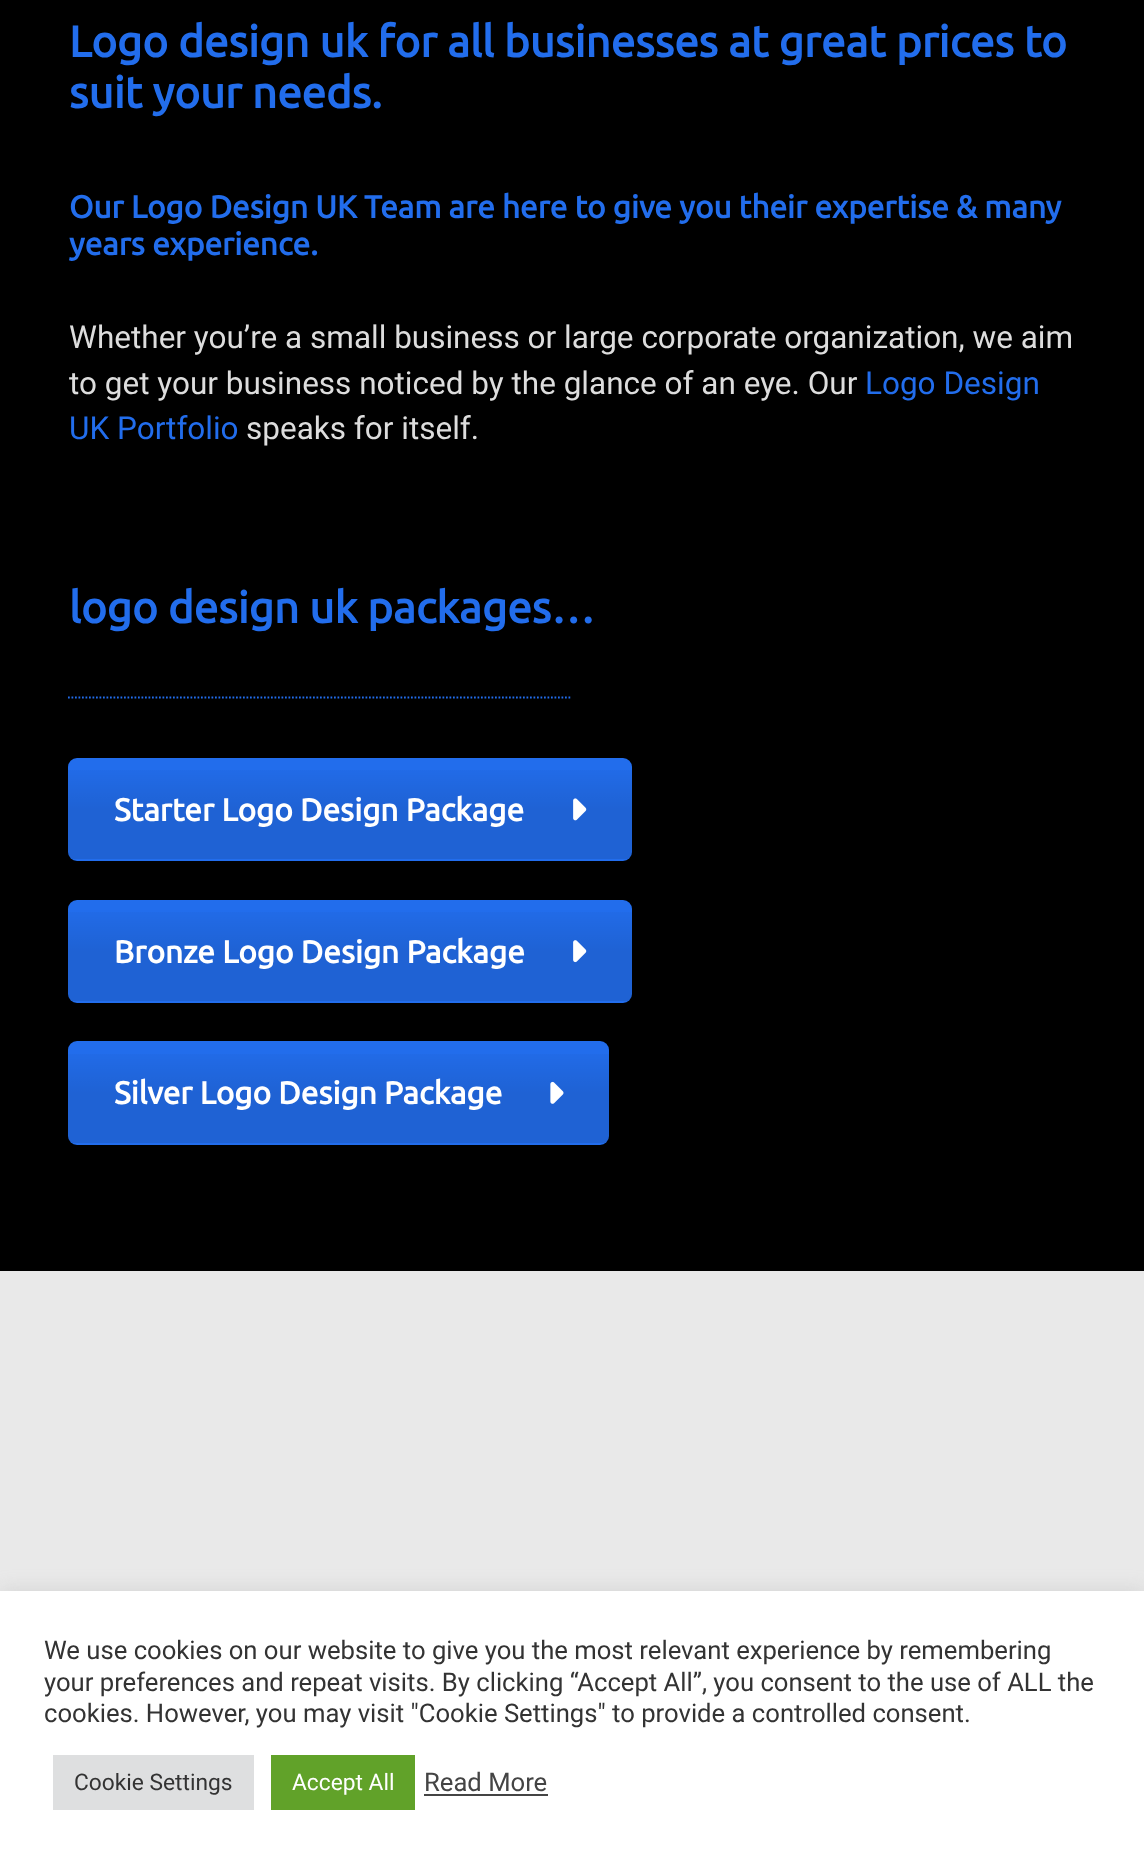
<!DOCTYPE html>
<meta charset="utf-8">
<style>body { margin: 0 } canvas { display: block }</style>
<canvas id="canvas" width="1144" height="1861"></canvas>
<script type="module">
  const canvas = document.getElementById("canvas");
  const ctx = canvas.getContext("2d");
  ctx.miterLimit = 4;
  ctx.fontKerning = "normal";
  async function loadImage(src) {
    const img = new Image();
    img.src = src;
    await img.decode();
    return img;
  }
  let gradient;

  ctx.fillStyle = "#000000";
  ctx.fillRect(0, 0, 1144, 1861);
  ctx.font = "bold 43.75px Ubuntu";
  ctx.fillStyle = "#226dec";
  ctx.fillText("Logo design uk for all businesses at great prices to", 69, 57);
  ctx.fillText("suit your needs.", 69, 108);
  ctx.font = "bold 31.5px Ubuntu";
  ctx.fillText("Our Logo Design UK Team are here to give you their expertise & many", 69, 218);
  ctx.fillText("years experience.", 69, 255);
  ctx.font = "31.5px Roboto";
  ctx.fillStyle = "#dddddd";
  ctx.fillText("Whether you’re a small business or large corporate organization, we aim", 69, 348);
  ctx.fillText("to get your business noticed by the glance of an eye. Our", 69, 394);
  ctx.fillStyle = "#226dec";
  ctx.fillText("Logo Design", 865, 394);
  ctx.fillText("UK Portfolio", 69, 439);
  ctx.fillStyle = "#dddddd";
  ctx.fillText("speaks for itself.", 246, 439);
  ctx.font = "bold 43.75px Ubuntu";
  ctx.fillStyle = "#226dec";
  ctx.fillText("logo design uk packages…", 69, 623);
  ctx.beginPath();
  ctx.moveTo(68, 697.5);
  ctx.lineTo(572, 697.5);
  ctx.strokeStyle = "#226dec";
  ctx.lineWidth = 1.8;
  ctx.setLineDash([1.75, 1.75]);
  ctx.stroke();
  ctx.beginPath();
  ctx.roundRect(68, 758, 564, 103, 9);
  ctx.fill();
  ctx.save();
  ctx.beginPath();
  ctx.roundRect(68, 758, 564, 103, 9);
  ctx.clip();
  gradient = ctx.createLinearGradient(630, 759, 630, 859);
  gradient.addColorStop(0, "rgba(0, 0, 0, 0)");
  gradient.addColorStop(0.5, "rgba(0, 0, 0, 0.1)");
  gradient.addColorStop(1, "rgba(0, 0, 0, 0.1)");
  ctx.fillStyle = gradient;
  ctx.fillRect(68, 770, 564, 89);
  ctx.restore();
  ctx.font = "bold 31.5px Ubuntu";
  ctx.fillStyle = "#ffffff";
  ctx.fillText("Starter Logo Design Package", 114, 821);
  ctx.drawImage(await loadImage("img1.png"), 573, 798, 14, 23);
  ctx.fillStyle = "#226dec";
  ctx.beginPath();
  ctx.roundRect(68, 900, 564, 103, 9);
  ctx.fill();
  ctx.save();
  ctx.beginPath();
  ctx.roundRect(68, 900, 564, 103, 9);
  ctx.clip();
  gradient = ctx.createLinearGradient(630, 901, 630, 1001);
  gradient.addColorStop(0, "rgba(0, 0, 0, 0)");
  gradient.addColorStop(0.5, "rgba(0, 0, 0, 0.1)");
  gradient.addColorStop(1, "rgba(0, 0, 0, 0.1)");
  ctx.fillStyle = gradient;
  ctx.fillRect(68, 912, 564, 89);
  ctx.restore();
  ctx.fillStyle = "#ffffff";
  ctx.fillText("Bronze Logo Design Package", 114, 963);
  ctx.drawImage(await loadImage("img2.png"), 573, 940, 14, 23);
  ctx.fillStyle = "#226dec";
  ctx.beginPath();
  ctx.roundRect(68, 1041, 541, 104, 9);
  ctx.fill();
  ctx.save();
  ctx.beginPath();
  ctx.roundRect(68, 1041, 541, 104, 9);
  ctx.clip();
  gradient = ctx.createLinearGradient(607, 1043, 607, 1143);
  gradient.addColorStop(0, "rgba(0, 0, 0, 0)");
  gradient.addColorStop(0.5, "rgba(0, 0, 0, 0.1)");
  gradient.addColorStop(1, "rgba(0, 0, 0, 0.1)");
  ctx.fillStyle = gradient;
  ctx.fillRect(68, 1054, 541, 89);
  ctx.restore();
  ctx.fillStyle = "#ffffff";
  ctx.fillText("Silver Logo Design Package", 114, 1104);
  ctx.drawImage(await loadImage("img3.png"), 550, 1081, 14, 23);
  ctx.fillStyle = "#e9e9e9";
  ctx.fillRect(0, 1271, 1144, 320);
  ctx.fillStyle = "rgba(172, 171, 171, 0.3)";
  ctx.filter = "blur(9px)";
  ctx.beginPath();
  ctx.rect(0, 1589, 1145, 271);
  ctx.fill();
  ctx.filter = "none";
  ctx.fillStyle = "#ffffff";
  ctx.fillRect(0, 1591, 1144, 270);
  ctx.font = "25.65px Roboto";
  ctx.fillStyle = "#333333";
  ctx.fillText("We use cookies on our website to give you the most relevant experience by remembering", 44, 1659);
  ctx.fillText("your preferences and repeat visits. By clicking “Accept All”, you consent to the use of ALL the", 44, 1691);
  ctx.fillText("cookies. However, you may visit \"Cookie Settings\" to provide a controlled consent.", 44, 1722);
  ctx.fillStyle = "#dedfe0";
  ctx.fillRect(53, 1755, 201, 55);
  ctx.font = "22.75px Roboto";
  ctx.fillStyle = "#333333";
  ctx.fillText("Cookie Settings", 74, 1790);
  ctx.fillStyle = "#61a229";
  ctx.fillRect(271, 1755, 144, 55);
  ctx.fillStyle = "#ffffff";
  ctx.fillText("Accept All", 292, 1790);
  ctx.font = "25.65px Roboto";
  ctx.fillStyle = "#444444";
  ctx.fillText("Read More", 424, 1791);
  ctx.fillRect(424, 1794, 124, 2);
</script>
